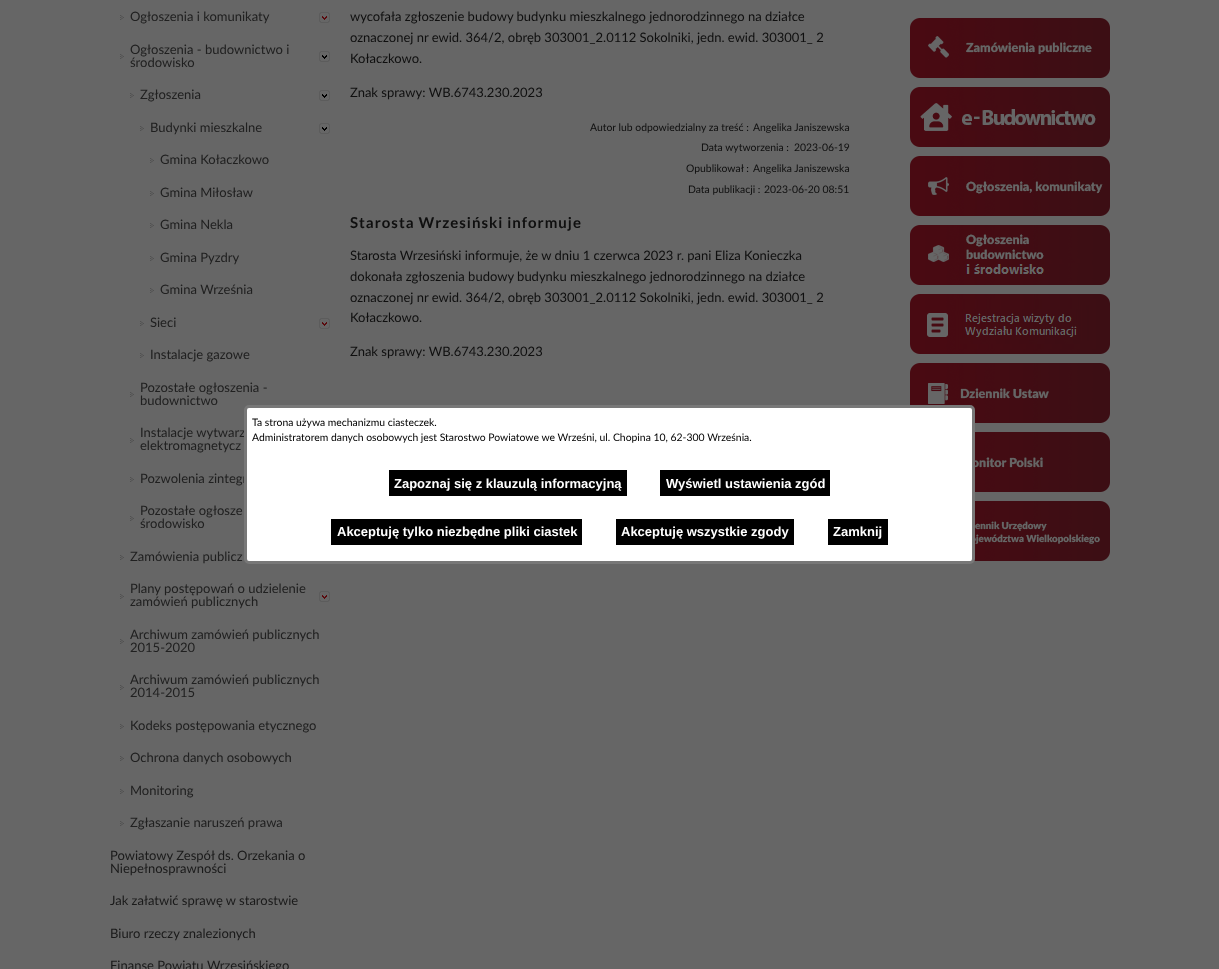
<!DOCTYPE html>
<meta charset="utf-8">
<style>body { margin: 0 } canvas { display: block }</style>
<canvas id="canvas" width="1219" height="969"></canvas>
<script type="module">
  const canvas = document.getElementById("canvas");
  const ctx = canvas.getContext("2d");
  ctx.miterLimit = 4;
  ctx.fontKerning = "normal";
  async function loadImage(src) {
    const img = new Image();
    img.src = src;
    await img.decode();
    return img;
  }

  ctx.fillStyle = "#666666";
  ctx.fillRect(0, 0, 1219, 969);
  ctx.drawImage(await loadImage("img1.png"), 120, 15, 4, 5);
  ctx.drawImage(await loadImage("img2.png"), 319, 12, 11, 11);
  ctx.font = "13px Lato";
  ctx.fillStyle = "#202020";
  ctx.fillText("Ogłoszenia i komunikaty", 130, 21);
  ctx.drawImage(await loadImage("img1.png"), 120, 54, 4, 5);
  ctx.drawImage(await loadImage("img3.png"), 319, 51, 11, 11);
  ctx.fillText("Ogłoszenia - budownictwo i", 130, 54);
  ctx.fillText("środowisko", 130, 67);
  ctx.drawImage(await loadImage("img1.png"), 130, 93, 4, 5);
  ctx.drawImage(await loadImage("img3.png"), 319, 90, 11, 11);
  ctx.fillText("Zgłoszenia", 140, 99);
  ctx.drawImage(await loadImage("img1.png"), 140, 126, 4, 5);
  ctx.drawImage(await loadImage("img3.png"), 319, 123, 11, 11);
  ctx.fillText("Budynki mieszkalne", 150, 132);
  ctx.drawImage(await loadImage("img1.png"), 150, 158, 4, 5);
  ctx.fillText("Gmina Kołaczkowo", 160, 164);
  ctx.drawImage(await loadImage("img1.png"), 150, 191, 4, 5);
  ctx.fillText("Gmina Miłosław", 160, 197);
  ctx.drawImage(await loadImage("img1.png"), 150, 223, 4, 5);
  ctx.fillText("Gmina Nekla", 160, 229);
  ctx.drawImage(await loadImage("img1.png"), 150, 256, 4, 5);
  ctx.fillText("Gmina Pyzdry", 160, 262);
  ctx.drawImage(await loadImage("img1.png"), 150, 288, 4, 5);
  ctx.fillText("Gmina Września", 160, 294);
  ctx.drawImage(await loadImage("img1.png"), 140, 321, 4, 5);
  ctx.drawImage(await loadImage("img2.png"), 319, 318, 11, 11);
  ctx.fillText("Sieci", 150, 327);
  ctx.drawImage(await loadImage("img1.png"), 140, 353, 4, 5);
  ctx.fillText("Instalacje gazowe", 150, 359);
  ctx.drawImage(await loadImage("img1.png"), 130, 392, 4, 5);
  ctx.fillText("Pozostałe ogłoszenia -", 140, 392);
  ctx.fillText("budownictwo", 140, 405);
  ctx.drawImage(await loadImage("img1.png"), 130, 438, 4, 5);
  ctx.fillText("Instalacje wytwarz", 140, 437);
  ctx.fillText("elektromagnetycz", 140, 450);
  ctx.drawImage(await loadImage("img1.png"), 130, 477, 4, 5);
  ctx.fillText("Pozwolenia zintegr", 140, 483);
  ctx.drawImage(await loadImage("img1.png"), 130, 516, 4, 5);
  ctx.fillText("Pozostałe ogłosze", 140, 515);
  ctx.fillText("środowisko", 140, 528);
  ctx.drawImage(await loadImage("img1.png"), 120, 555, 4, 5);
  ctx.fillText("Zamówienia publicz", 130, 561);
  ctx.drawImage(await loadImage("img1.png"), 120, 594, 4, 5);
  ctx.drawImage(await loadImage("img2.png"), 319, 591, 11, 11);
  ctx.fillText("Plany postępowań o udzielenie", 130, 593);
  ctx.fillText("zamówień publicznych", 130, 606);
  ctx.drawImage(await loadImage("img1.png"), 120, 639, 4, 5);
  ctx.fillText("Archiwum zamówień publicznych", 130, 639);
  ctx.fillText("2015-2020", 130, 652);
  ctx.drawImage(await loadImage("img1.png"), 120, 685, 4, 5);
  ctx.fillText("Archiwum zamówień publicznych", 130, 684);
  ctx.fillText("2014-2015", 130, 697);
  ctx.drawImage(await loadImage("img1.png"), 120, 724, 4, 5);
  ctx.fillText("Kodeks postępowania etycznego", 130, 730);
  ctx.drawImage(await loadImage("img1.png"), 120, 756, 4, 5);
  ctx.fillText("Ochrona danych osobowych", 130, 762);
  ctx.drawImage(await loadImage("img1.png"), 120, 789, 4, 5);
  ctx.fillText("Monitoring", 130, 795);
  ctx.drawImage(await loadImage("img1.png"), 120, 821, 4, 5);
  ctx.fillText("Zgłaszanie naruszeń prawa", 130, 827);
  ctx.fillStyle = "#1a1a1a";
  ctx.fillText("Powiatowy Zespół ds. Orzekania o", 110, 860);
  ctx.fillText("Niepełnosprawności", 110, 873);
  ctx.fillText("Jak załatwić sprawę w starostwie", 110, 905);
  ctx.fillText("Biuro rzeczy znalezionych", 110, 938);
  ctx.fillText("Finanse Powiatu Wrzesińskiego", 110, 970);
  ctx.fillStyle = "#0f0f0f";
  ctx.fillText("wycofała zgłoszenie budowy budynku mieszkalnego jednorodzinnego na działce", 350, 21);
  ctx.fillText("oznaczonej nr ewid. 364/2, obręb 303001_2.0112 Sokolniki, jedn. ewid. 303001_ 2", 350, 42);
  ctx.fillText("Kołaczkowo.", 350, 63);
  ctx.fillText("Znak sprawy: WB.6743.230.2023", 350, 97);
  ctx.font = "10.4px Lato";
  ctx.fillText("Autor lub odpowiedzialny za treść :", 590, 131);
  ctx.fillText("Angelika Janiszewska", 753, 131);
  ctx.fillText("Data wytworzenia :", 701, 151);
  ctx.fillText("2023-06-19", 794, 151);
  ctx.fillText("Opublikował :", 686, 172);
  ctx.fillText("Angelika Janiszewska", 753, 172);
  ctx.fillText("Data publikacji :", 688, 193);
  ctx.fillText("2023-06-20 08:51", 764, 193);
  ctx.letterSpacing = "1px";
  ctx.font = "bold 15px Lato";
  ctx.fillText("Starosta Wrzesiński informuje", 350, 228);
  ctx.letterSpacing = "0px";
  ctx.font = "13px Lato";
  ctx.fillText("Starosta Wrzesiński informuje, że w dniu 1 czerwca 2023 r. pani Eliza Konieczka", 350, 260);
  ctx.fillText("dokonała zgłoszenia budowy budynku mieszkalnego jednorodzinnego na działce", 350, 281);
  ctx.fillText("oznaczonej nr ewid. 364/2, obręb 303001_2.0112 Sokolniki, jedn. ewid. 303001_ 2", 350, 302);
  ctx.fillText("Kołaczkowo.", 350, 322);
  ctx.fillText("Znak sprawy: WB.6743.230.2023", 350, 356);
  ctx.drawImage(await loadImage("img4.png"), 910, 18, 200, 60);
  ctx.drawImage(await loadImage("img5.png"), 910, 87, 200, 60);
  ctx.drawImage(await loadImage("img6.png"), 910, 156, 200, 60);
  ctx.drawImage(await loadImage("img7.png"), 910, 225, 200, 60);
  ctx.drawImage(await loadImage("img8.png"), 910, 294, 200, 60);
  ctx.drawImage(await loadImage("img9.png"), 910, 363, 200, 60);
  ctx.drawImage(await loadImage("img10.png"), 975, 432, 135, 60);
  ctx.drawImage(await loadImage("img11.png"), 974, 501, 136, 60);
  ctx.fillStyle = "#ffffff";
  ctx.beginPath();
  ctx.roundRect(245.5, 406.5, 728, 156, 3.5);
  ctx.fill();
  ctx.strokeStyle = "#787878";
  ctx.lineWidth = 3;
  ctx.stroke();
  ctx.font = "10.4px Lato";
  ctx.fillStyle = "#000000";
  ctx.fillText("Ta strona używa mechanizmu ciasteczek.", 252, 426);
  ctx.fillText("Administratorem danych osobowych jest Starostwo Powiatowe we Wrześni, ul. Chopina 10, 62-300 Września.", 252, 441);
  ctx.fillRect(389, 470, 238, 26);
  ctx.font = "bold 13px Liberation Sans";
  ctx.fillStyle = "#ffffff";
  ctx.fillText("Zapoznaj się z klauzulą informacyjną", 394, 488);
  ctx.fillStyle = "#000000";
  ctx.fillRect(660, 470, 170, 26);
  ctx.fillStyle = "#ffffff";
  ctx.fillText("Wyświetl ustawienia zgód", 666, 488);
  ctx.fillStyle = "#000000";
  ctx.fillRect(331, 519, 251, 26);
  ctx.fillStyle = "#ffffff";
  ctx.fillText("Akceptuję tylko niezbędne pliki ciastek", 337, 536);
  ctx.fillStyle = "#000000";
  ctx.fillRect(616, 519, 178, 26);
  ctx.fillStyle = "#ffffff";
  ctx.fillText("Akceptuję wszystkie zgody", 621, 536);
  ctx.fillStyle = "#000000";
  ctx.fillRect(828, 519, 60, 26);
  ctx.fillStyle = "#ffffff";
  ctx.fillText("Zamknij", 833, 536);
</script>
